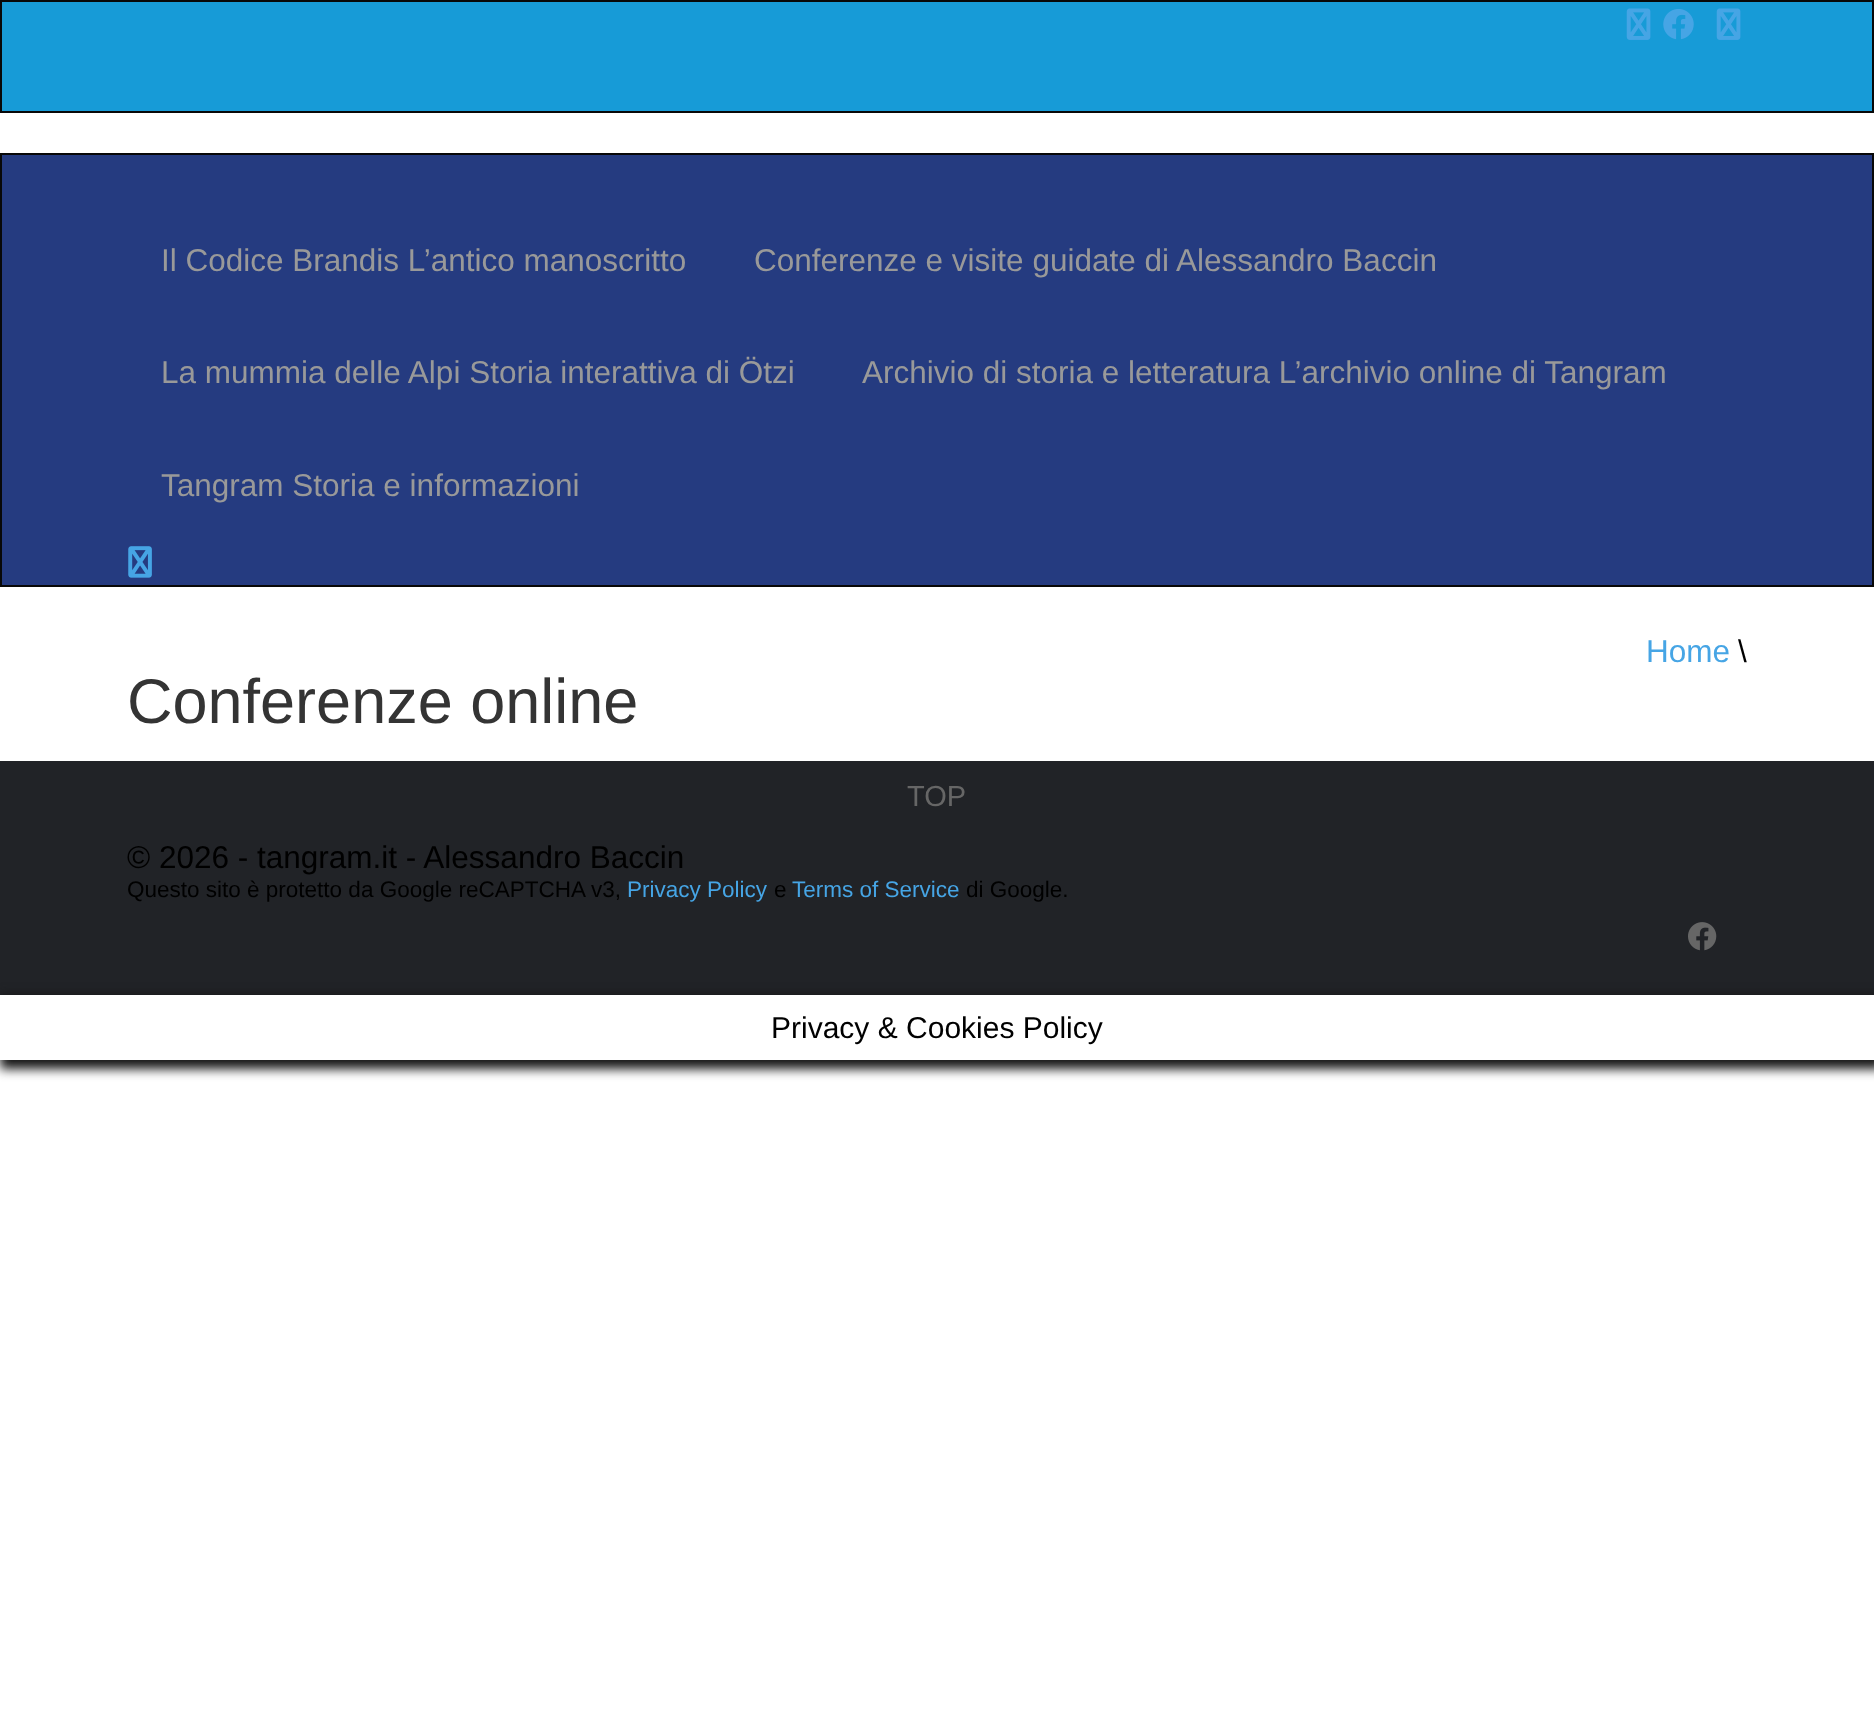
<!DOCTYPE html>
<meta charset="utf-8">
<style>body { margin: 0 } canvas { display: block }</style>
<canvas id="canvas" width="1874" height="1731"></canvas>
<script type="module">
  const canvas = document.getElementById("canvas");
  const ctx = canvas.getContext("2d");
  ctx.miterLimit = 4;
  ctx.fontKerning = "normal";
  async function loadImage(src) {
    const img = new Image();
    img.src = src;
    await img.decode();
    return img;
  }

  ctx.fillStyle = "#ffffff";
  ctx.fillRect(0, 0, 1874, 1731);
  ctx.fillStyle = "#179bd7";
  ctx.beginPath();
  ctx.rect(1, 1, 1872, 111);
  ctx.fill();
  ctx.strokeStyle = "#080808";
  ctx.lineWidth = 2;
  ctx.stroke();
  ctx.drawImage(await loadImage("img1.png"), 1626, 8, 25, 32);
  ctx.drawImage(await loadImage("img2.png"), 1663, 9, 31, 31);
  ctx.drawImage(await loadImage("img1.png"), 1716, 8, 25, 32);
  ctx.fillStyle = "#253b80";
  ctx.beginPath();
  ctx.rect(1, 154, 1872, 432);
  ctx.fill();
  ctx.stroke();
  ctx.font = "31.5px Liberation Sans";
  ctx.fillStyle = "#999999";
  ctx.fillText("Il Codice Brandis L’antico manoscritto", 161, 271);
  ctx.fillText("Conferenze e visite guidate di Alessandro Baccin", 754, 271);
  ctx.fillText("La mummia delle Alpi Storia interattiva di Ötzi", 161, 383);
  ctx.fillText("Archivio di storia e letteratura L’archivio online di Tangram", 862, 383);
  ctx.fillText("Tangram Storia e informazioni", 161, 496);
  ctx.drawImage(await loadImage("img3.png"), 128, 546, 24, 32);
  ctx.fillStyle = "#46a5e5";
  ctx.fillText("Home", 1646, 662);
  ctx.fillStyle = "#000000";
  ctx.fillText("\\", 1738, 662);
  ctx.font = "63px Liberation Sans";
  ctx.fillStyle = "#343434";
  ctx.fillText("Conferenze online", 127, 723);
  ctx.fillStyle = "#212327";
  ctx.fillRect(0, 761, 1874, 234);
  ctx.font = "29px Liberation Sans";
  ctx.fillStyle = "#666666";
  ctx.fillText("TOP", 907, 806);
  ctx.font = "31.5px Liberation Sans";
  ctx.fillStyle = "#000000";
  ctx.fillText("© 2026 - tangram.it - Alessandro Baccin", 127, 868);
  ctx.font = "22.5px Liberation Sans";
  ctx.fillText("Questo sito è protetto da Google reCAPTCHA v3,", 127, 897);
  ctx.fillStyle = "#46a5e5";
  ctx.fillText("Privacy Policy", 627, 897);
  ctx.fillStyle = "#000000";
  ctx.fillText("e", 774, 897);
  ctx.fillStyle = "#46a5e5";
  ctx.fillText("Terms of Service", 792, 897);
  ctx.fillStyle = "#000000";
  ctx.fillText("di Google.", 966, 897);
  ctx.drawImage(await loadImage("img4.png"), 1688, 922, 29, 29);
  ctx.save();
  ctx.beginPath();
  ctx.moveTo(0, 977);
  ctx.lineTo(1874, 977);
  ctx.lineTo(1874, 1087);
  ctx.lineTo(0, 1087);
  ctx.closePath();
  ctx.moveTo(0, 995);
  ctx.lineTo(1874, 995);
  ctx.lineTo(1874, 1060);
  ctx.lineTo(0, 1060);
  ctx.closePath();
  ctx.clip("evenodd");
  ctx.fillStyle = "#161616";
  ctx.filter = "blur(5.5px)";
  ctx.beginPath();
  ctx.rect(0, 995, 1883, 74);
  ctx.fill();
  ctx.filter = "none";
  ctx.restore();
  ctx.font = "30px Liberation Sans";
  ctx.fillText("Privacy & Cookies Policy", 771, 1038);
</script>
